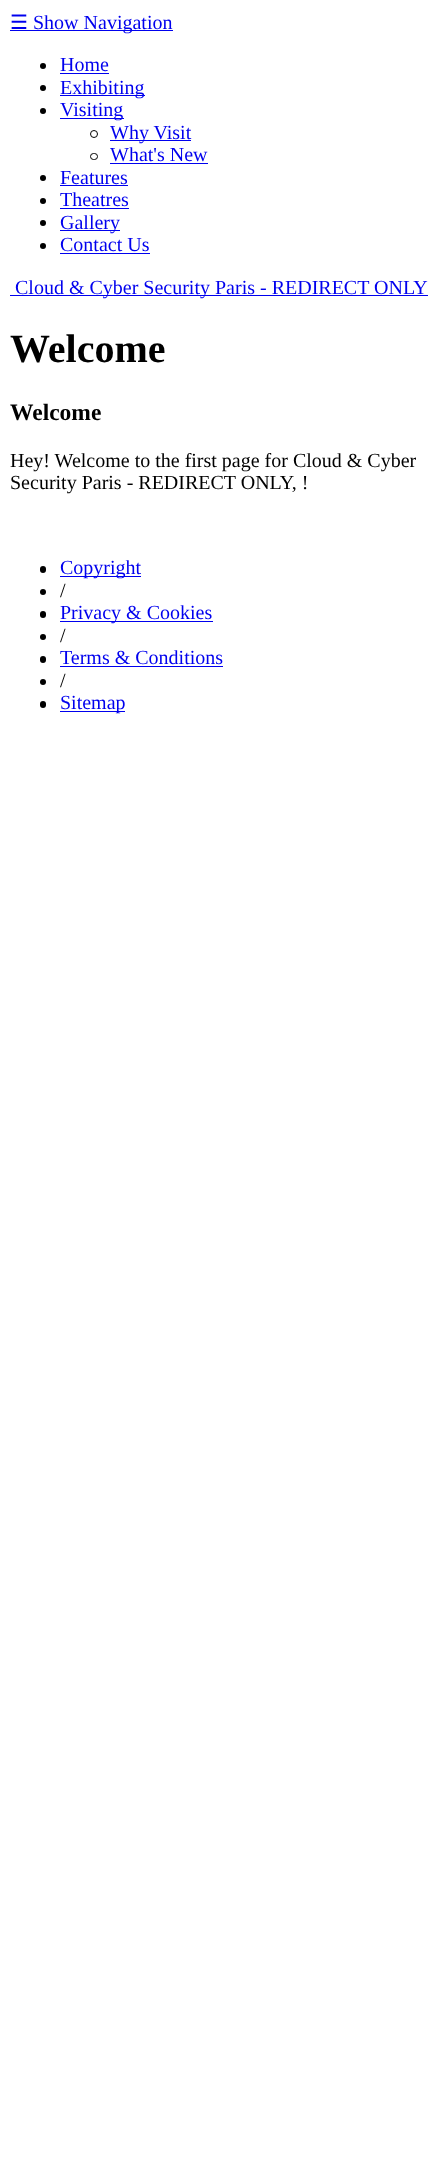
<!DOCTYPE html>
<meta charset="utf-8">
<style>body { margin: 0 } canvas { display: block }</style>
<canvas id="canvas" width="442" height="2160"></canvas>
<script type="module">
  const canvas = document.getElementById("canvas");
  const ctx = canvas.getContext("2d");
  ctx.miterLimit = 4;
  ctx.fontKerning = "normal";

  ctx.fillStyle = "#ffffff";
  ctx.fillRect(0, 0, 442, 2160);
  ctx.font = "20px DejaVu Sans";
  ctx.fillStyle = "#0000ee";
  ctx.fillText("☰", 10, 29);
  ctx.fillRect(10, 30, 163, 1);
  ctx.font = "20px Liberation Serif";
  ctx.fillText("Show Navigation", 33, 29);
  ctx.fillStyle = "#000000";
  ctx.beginPath();
  ctx.arc(43, 66, 3, 0, Math.PI * 2);
  ctx.fill();
  ctx.fillStyle = "#0000ee";
  ctx.fillText("Home", 60, 71);
  ctx.fillRect(60, 73, 49, 1);
  ctx.fillStyle = "#000000";
  ctx.beginPath();
  ctx.arc(43, 88, 3, 0, Math.PI * 2);
  ctx.fill();
  ctx.fillStyle = "#0000ee";
  ctx.fillRect(60, 95, 85, 1);
  ctx.fillText("Exhibiting", 60, 94);
  ctx.fillStyle = "#000000";
  ctx.beginPath();
  ctx.arc(43, 111, 3, 0, Math.PI * 2);
  ctx.fill();
  ctx.fillStyle = "#0000ee";
  ctx.fillRect(60, 118, 64, 1);
  ctx.fillText("Visiting", 60, 116);
  ctx.beginPath();
  ctx.arc(94, 134, 3.5, 0, Math.PI * 2);
  ctx.strokeStyle = "#000000";
  ctx.stroke();
  ctx.fillRect(110, 140, 81, 1);
  ctx.fillText("Why Visit", 110, 139);
  ctx.beginPath();
  ctx.roundRect(90.5, 153.5, 7, 6, 3);
  ctx.stroke();
  ctx.fillText("What's New", 110, 161);
  ctx.fillRect(110, 163, 98, 1);
  ctx.fillStyle = "#000000";
  ctx.beginPath();
  ctx.arc(43, 178, 3, 0, Math.PI * 2);
  ctx.fill();
  ctx.fillStyle = "#0000ee";
  ctx.fillText("Features", 60, 184);
  ctx.fillRect(60, 185, 68, 1);
  ctx.fillStyle = "#000000";
  ctx.beginPath();
  ctx.arc(43, 201, 3, 0, Math.PI * 2);
  ctx.fill();
  ctx.fillStyle = "#0000ee";
  ctx.fillText("Theatres", 60, 206);
  ctx.fillRect(60, 208, 69, 1);
  ctx.fillStyle = "#000000";
  ctx.beginPath();
  ctx.arc(43, 223, 3, 0, Math.PI * 2);
  ctx.fill();
  ctx.fillStyle = "#0000ee";
  ctx.fillRect(60, 230, 60, 1);
  ctx.fillText("Gallery", 60, 229);
  ctx.fillStyle = "#000000";
  ctx.beginPath();
  ctx.arc(43, 246, 3, 0, Math.PI * 2);
  ctx.fill();
  ctx.fillStyle = "#0000ee";
  ctx.fillText("Contact Us", 60, 251);
  ctx.fillRect(60, 253, 90, 1);
  ctx.fillRect(10, 295, 418, 1);
  ctx.fillText("Cloud & Cyber Security Paris - REDIRECT ONLY", 15, 294);
  ctx.font = "bold 40px Liberation Serif";
  ctx.fillStyle = "#000000";
  ctx.fillText("Welcome", 10, 362);
  ctx.font = "bold 23.5px Liberation Serif";
  ctx.fillText("Welcome", 10, 420);
  ctx.font = "20px Liberation Serif";
  ctx.fillText("Hey! Welcome to the first page for Cloud & Cyber", 10, 467);
  ctx.fillText("Security Paris - REDIRECT ONLY, !", 10, 489);
  ctx.beginPath();
  ctx.roundRect(40, 566, 6, 7, 3);
  ctx.fill();
  ctx.fillStyle = "#0000ee";
  ctx.fillRect(60, 576, 81, 1);
  ctx.fillText("Copyright", 60, 574);
  ctx.fillStyle = "#000000";
  ctx.beginPath();
  ctx.arc(43, 592, 3, 0, Math.PI * 2);
  ctx.fill();
  ctx.fillText("/", 60, 597);
  ctx.beginPath();
  ctx.roundRect(40, 611, 6, 7, 3);
  ctx.fill();
  ctx.fillStyle = "#0000ee";
  ctx.fillRect(60, 621, 153, 1);
  ctx.fillText("Privacy & Cookies", 60, 619);
  ctx.fillStyle = "#000000";
  ctx.beginPath();
  ctx.arc(43, 637, 3, 0, Math.PI * 2);
  ctx.fill();
  ctx.fillText("/", 60, 642);
  ctx.beginPath();
  ctx.roundRect(40, 656, 6, 7, 3);
  ctx.fill();
  ctx.fillStyle = "#0000ee";
  ctx.fillText("Terms & Conditions", 60, 664);
  ctx.fillRect(60, 666, 163, 1);
  ctx.fillStyle = "#000000";
  ctx.beginPath();
  ctx.arc(43, 682, 3, 0, Math.PI * 2);
  ctx.fill();
  ctx.fillText("/", 60, 687);
  ctx.beginPath();
  ctx.roundRect(40, 701, 6, 7, 3);
  ctx.fill();
  ctx.fillStyle = "#0000ee";
  ctx.fillRect(60, 711, 65, 1);
  ctx.fillText("Sitemap", 60, 709);
</script>
